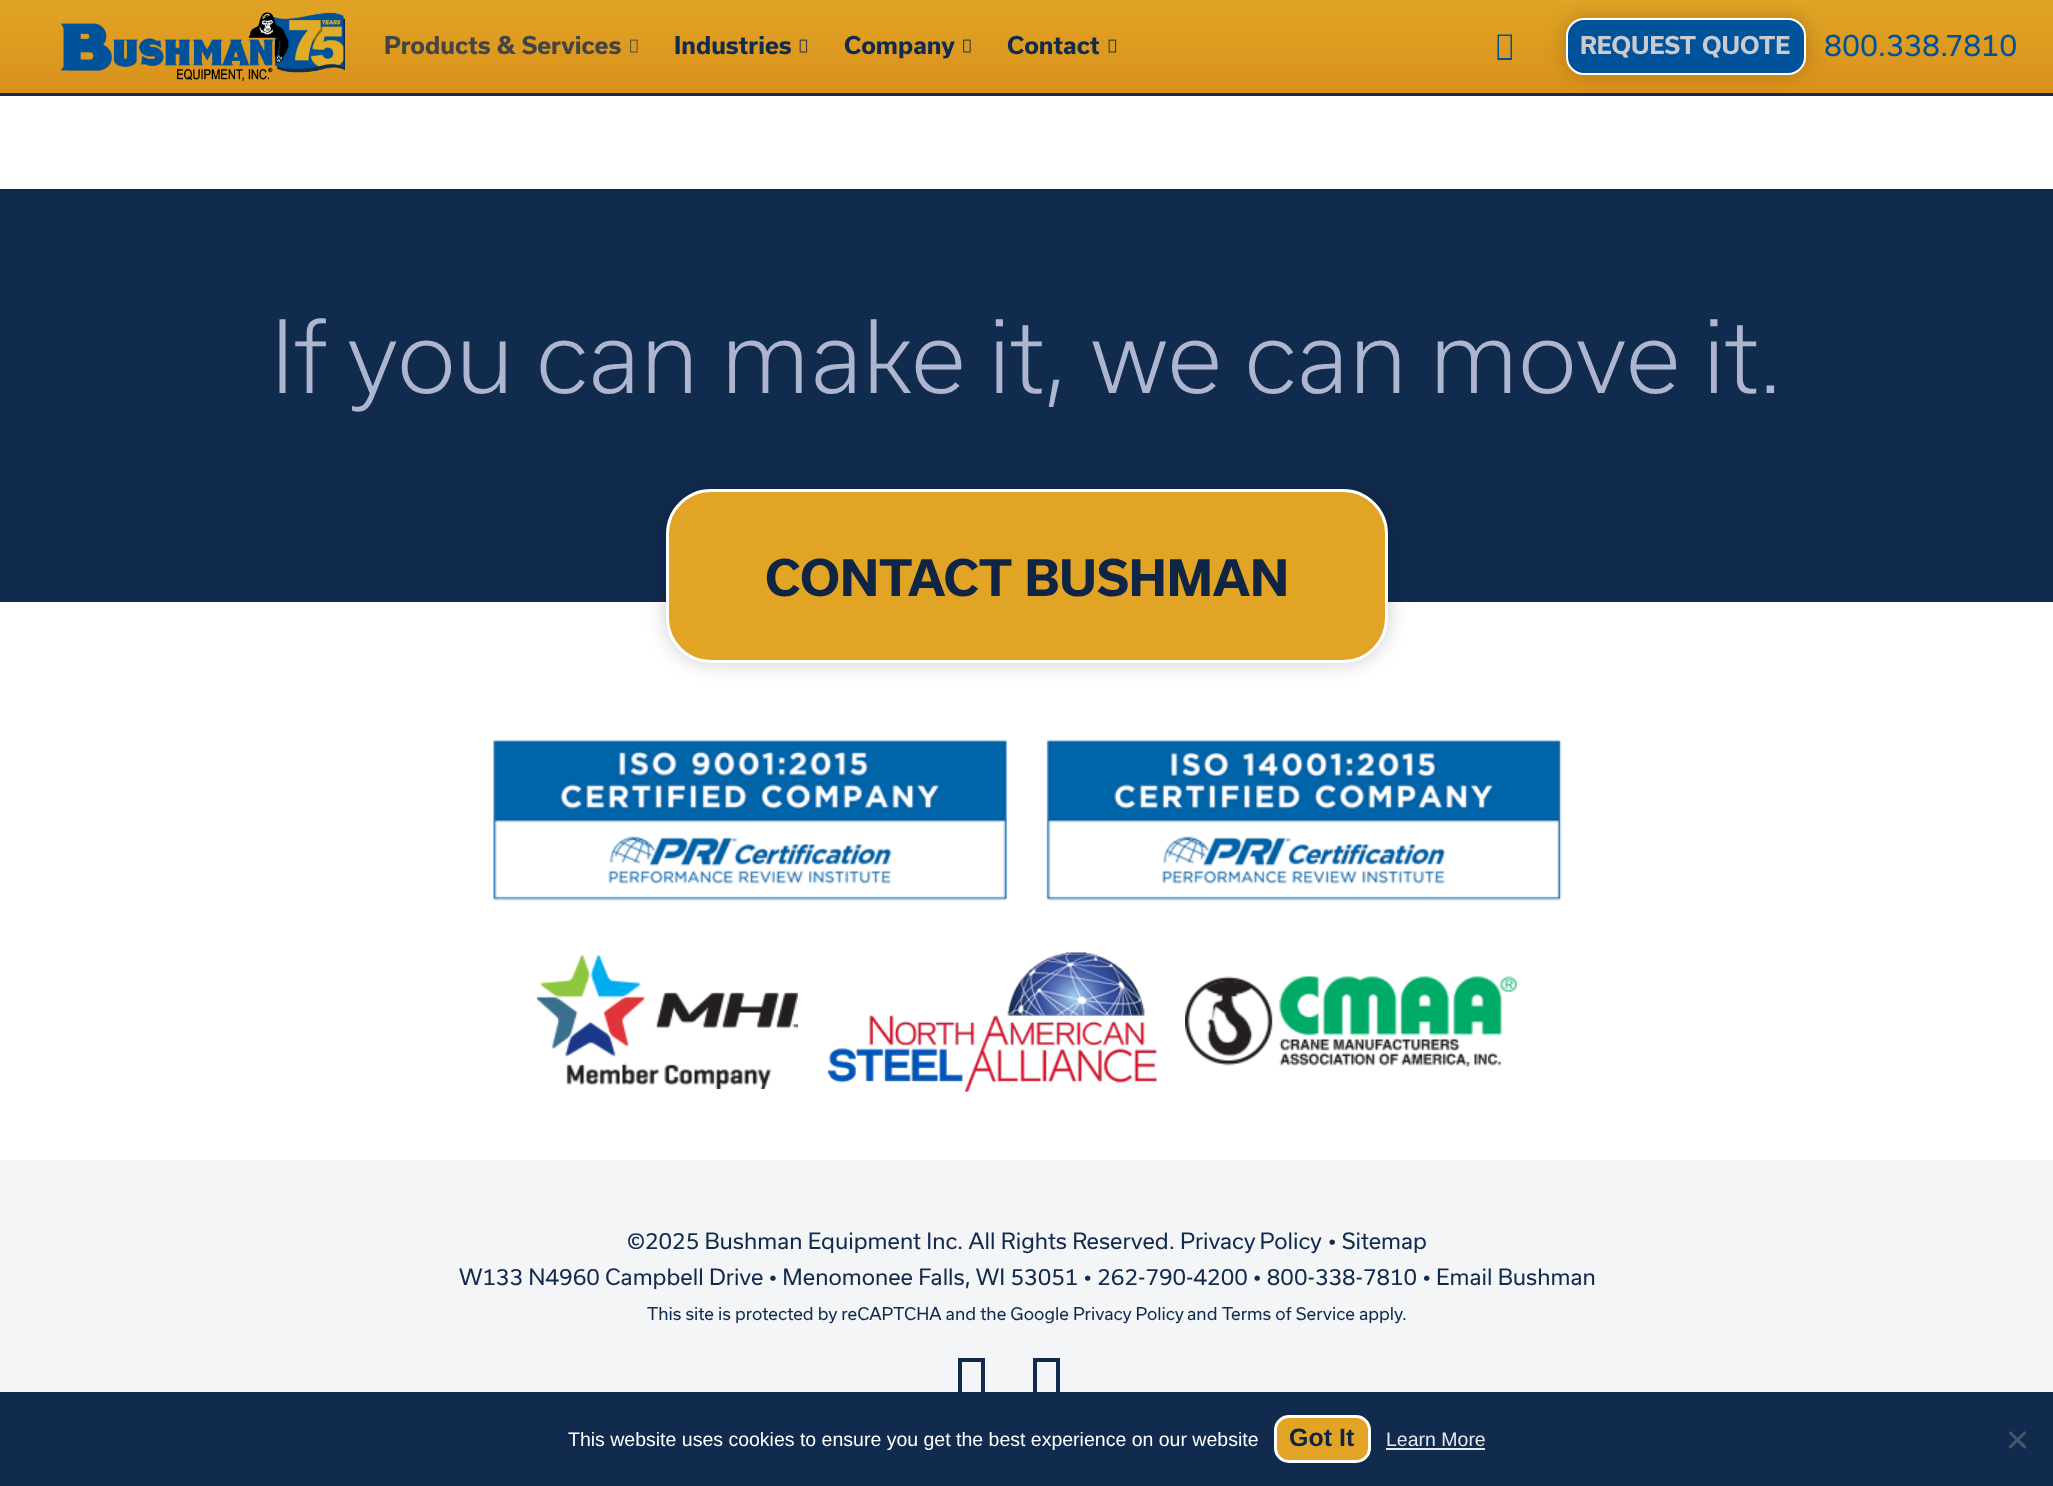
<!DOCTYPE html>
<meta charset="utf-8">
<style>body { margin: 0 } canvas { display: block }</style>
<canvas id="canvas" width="2053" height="1486"></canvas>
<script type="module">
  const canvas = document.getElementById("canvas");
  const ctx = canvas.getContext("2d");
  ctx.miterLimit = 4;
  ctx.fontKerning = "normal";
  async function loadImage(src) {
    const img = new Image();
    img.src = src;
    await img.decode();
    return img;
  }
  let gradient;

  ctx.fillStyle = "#ffffff";
  ctx.fillRect(0, 0, 2053, 1486);
  gradient = ctx.createLinearGradient(1027, 0, 1027, 93);
  gradient.addColorStop(0, "#e1a425");
  gradient.addColorStop(1, "#d9911b");
  ctx.fillStyle = gradient;
  ctx.fillRect(0, 0, 2053, 93);
  ctx.fillStyle = "#112b4e";
  ctx.fillRect(0, 93, 2053, 3);
  ctx.drawImage(await loadImage("img1.png"), 60, 12, 285, 69);
  ctx.font = "bold 23.4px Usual";
  ctx.fillStyle = "#444444";
  ctx.fillText("Products & Services", 384, 54);
  ctx.drawImage(await loadImage("img2.png"), 630, 39, 8, 14);
  ctx.fillStyle = "#112b4e";
  ctx.fillText("Industries", 674, 54);
  ctx.drawImage(await loadImage("img3.png"), 799, 39, 9, 14);
  ctx.fillText("Company", 844, 54);
  ctx.drawImage(await loadImage("img4.png"), 963, 39, 8, 14);
  ctx.fillText("Contact", 1007, 54);
  ctx.drawImage(await loadImage("img3.png"), 1108, 39, 9, 14);
  ctx.fillStyle = "#00529b";
  ctx.beginPath();
  ctx.moveTo(1497.5, 60);
  ctx.lineTo(1497.5, 34.5);
  ctx.lineTo(1512, 34.5);
  ctx.lineTo(1512, 60);
  ctx.closePath();
  ctx.moveTo(1499, 58);
  ctx.lineTo(1510.5, 58);
  ctx.lineTo(1510.5, 36);
  ctx.lineTo(1499, 36);
  ctx.closePath();
  ctx.fill();
  ctx.fillStyle = "rgba(5, 6, 6, 0.2)";
  ctx.filter = "blur(10px)";
  ctx.beginPath();
  ctx.roundRect(1566, 18, 240, 57, 18);
  ctx.fill();
  ctx.filter = "none";
  ctx.fillStyle = "#00529b";
  ctx.beginPath();
  ctx.roundRect(1567, 19, 238, 55, 17);
  ctx.fill();
  ctx.strokeStyle = "#ffffff";
  ctx.lineWidth = 2;
  ctx.stroke();
  ctx.fillStyle = "#c9cbcf";
  ctx.fillText("REQUEST QUOTE", 1580, 54);
  ctx.font = "28.75px Usual";
  ctx.fillStyle = "#00529b";
  ctx.fillText("800.338.7810", 1824, 56);
  ctx.fillStyle = "#112b4e";
  ctx.fillRect(0, 189, 2053, 413);
  ctx.font = "300 96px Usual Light";
  ctx.fillStyle = "#adb6ce";
  ctx.fillText("If you can make it, we can move it.", 271, 393);
  ctx.fillStyle = "rgba(5, 6, 6, 0.2)";
  ctx.filter = "blur(10px)";
  ctx.beginPath();
  ctx.roundRect(666, 489, 722, 174, 45);
  ctx.fill();
  ctx.filter = "none";
  ctx.fillStyle = "#e1a425";
  ctx.beginPath();
  ctx.roundRect(667.5, 490.5, 719, 171, 43.5);
  ctx.fill();
  ctx.lineWidth = 3;
  ctx.stroke();
  ctx.font = "bold 48px Usual";
  ctx.fillStyle = "#0f2543";
  ctx.fillText("CONTACT BUSHMAN", 765, 596);
  ctx.drawImage(await loadImage("img5.png"), 493, 739, 515, 162);
  ctx.drawImage(await loadImage("img6.png"), 1046, 739, 516, 162);
  ctx.drawImage(await loadImage("img7.png"), 537, 955, 261, 134);
  ctx.drawImage(await loadImage("img8.png"), 828, 952, 329, 140);
  ctx.drawImage(await loadImage("img9.png"), 1185, 976, 332, 91);
  ctx.fillStyle = "#f4f5f6";
  ctx.fillRect(0, 1160, 2053, 232);
  ctx.font = "21.6px Usual";
  ctx.fillStyle = "#112b4e";
  ctx.fillText("©2025 Bushman Equipment Inc. All Rights Reserved.", 627, 1249);
  ctx.wordSpacing = "-1px";
  ctx.fillText("Privacy Policy", 1180, 1249);
  ctx.wordSpacing = "0px";
  ctx.fillText("• Sitemap", 1328, 1249);
  ctx.fillText("W133 N4960 Campbell Drive • Menomonee Falls, WI 53051 • 262-790-4200 • 800-338-7810 • Email Bushman", 459, 1285);
  ctx.font = "16.8px Usual";
  ctx.fillText("This site is protected by reCAPTCHA and the Google", 647, 1320);
  ctx.fillText("Privacy Policy", 1073, 1320);
  ctx.fillText("and", 1187, 1320);
  ctx.fillText("Terms of Service apply.", 1222, 1320);
  ctx.beginPath();
  ctx.moveTo(958, 1404);
  ctx.lineTo(958, 1358);
  ctx.lineTo(985, 1358);
  ctx.lineTo(985, 1404);
  ctx.closePath();
  ctx.moveTo(962, 1401);
  ctx.lineTo(981, 1401);
  ctx.lineTo(981, 1362);
  ctx.lineTo(962, 1362);
  ctx.closePath();
  ctx.fill();
  ctx.beginPath();
  ctx.moveTo(1033, 1404);
  ctx.lineTo(1033, 1358);
  ctx.lineTo(1060, 1358);
  ctx.lineTo(1060, 1404);
  ctx.closePath();
  ctx.moveTo(1037, 1401);
  ctx.lineTo(1056, 1401);
  ctx.lineTo(1056, 1362);
  ctx.lineTo(1037, 1362);
  ctx.closePath();
  ctx.fill();
  ctx.fillRect(0, 1392, 2053, 94);
  ctx.font = "19.5px Liberation Sans";
  ctx.fillStyle = "#ffffff";
  ctx.fillText("This website uses cookies to ensure you get the best experience on our website", 568, 1446);
  ctx.fillStyle = "#e1a425";
  ctx.beginPath();
  ctx.roundRect(1275.5, 1416.5, 94, 45, 13.5);
  ctx.fill();
  ctx.stroke();
  ctx.font = "bold 25px Liberation Sans";
  ctx.fillStyle = "#0f2543";
  ctx.fillText("Got It", 1289, 1446);
  ctx.font = "19.5px Liberation Sans";
  ctx.fillStyle = "#e7eaed";
  ctx.fillText("Learn More", 1386, 1446);
  ctx.fillRect(1386, 1448, 99, 2);
  ctx.fillStyle = "#495667";
  ctx.beginPath();
  ctx.moveTo(2024.5, 1431);
  ctx.lineTo(2026.5, 1433);
  ctx.lineTo(2010.5, 1449);
  ctx.lineTo(2008.5, 1446.5);
  ctx.closePath();
  ctx.fill();
  ctx.beginPath();
  ctx.moveTo(2008.5, 1433);
  ctx.lineTo(2010.5, 1431);
  ctx.lineTo(2026.5, 1446.5);
  ctx.lineTo(2024.5, 1449);
  ctx.closePath();
  ctx.fill();
</script>
